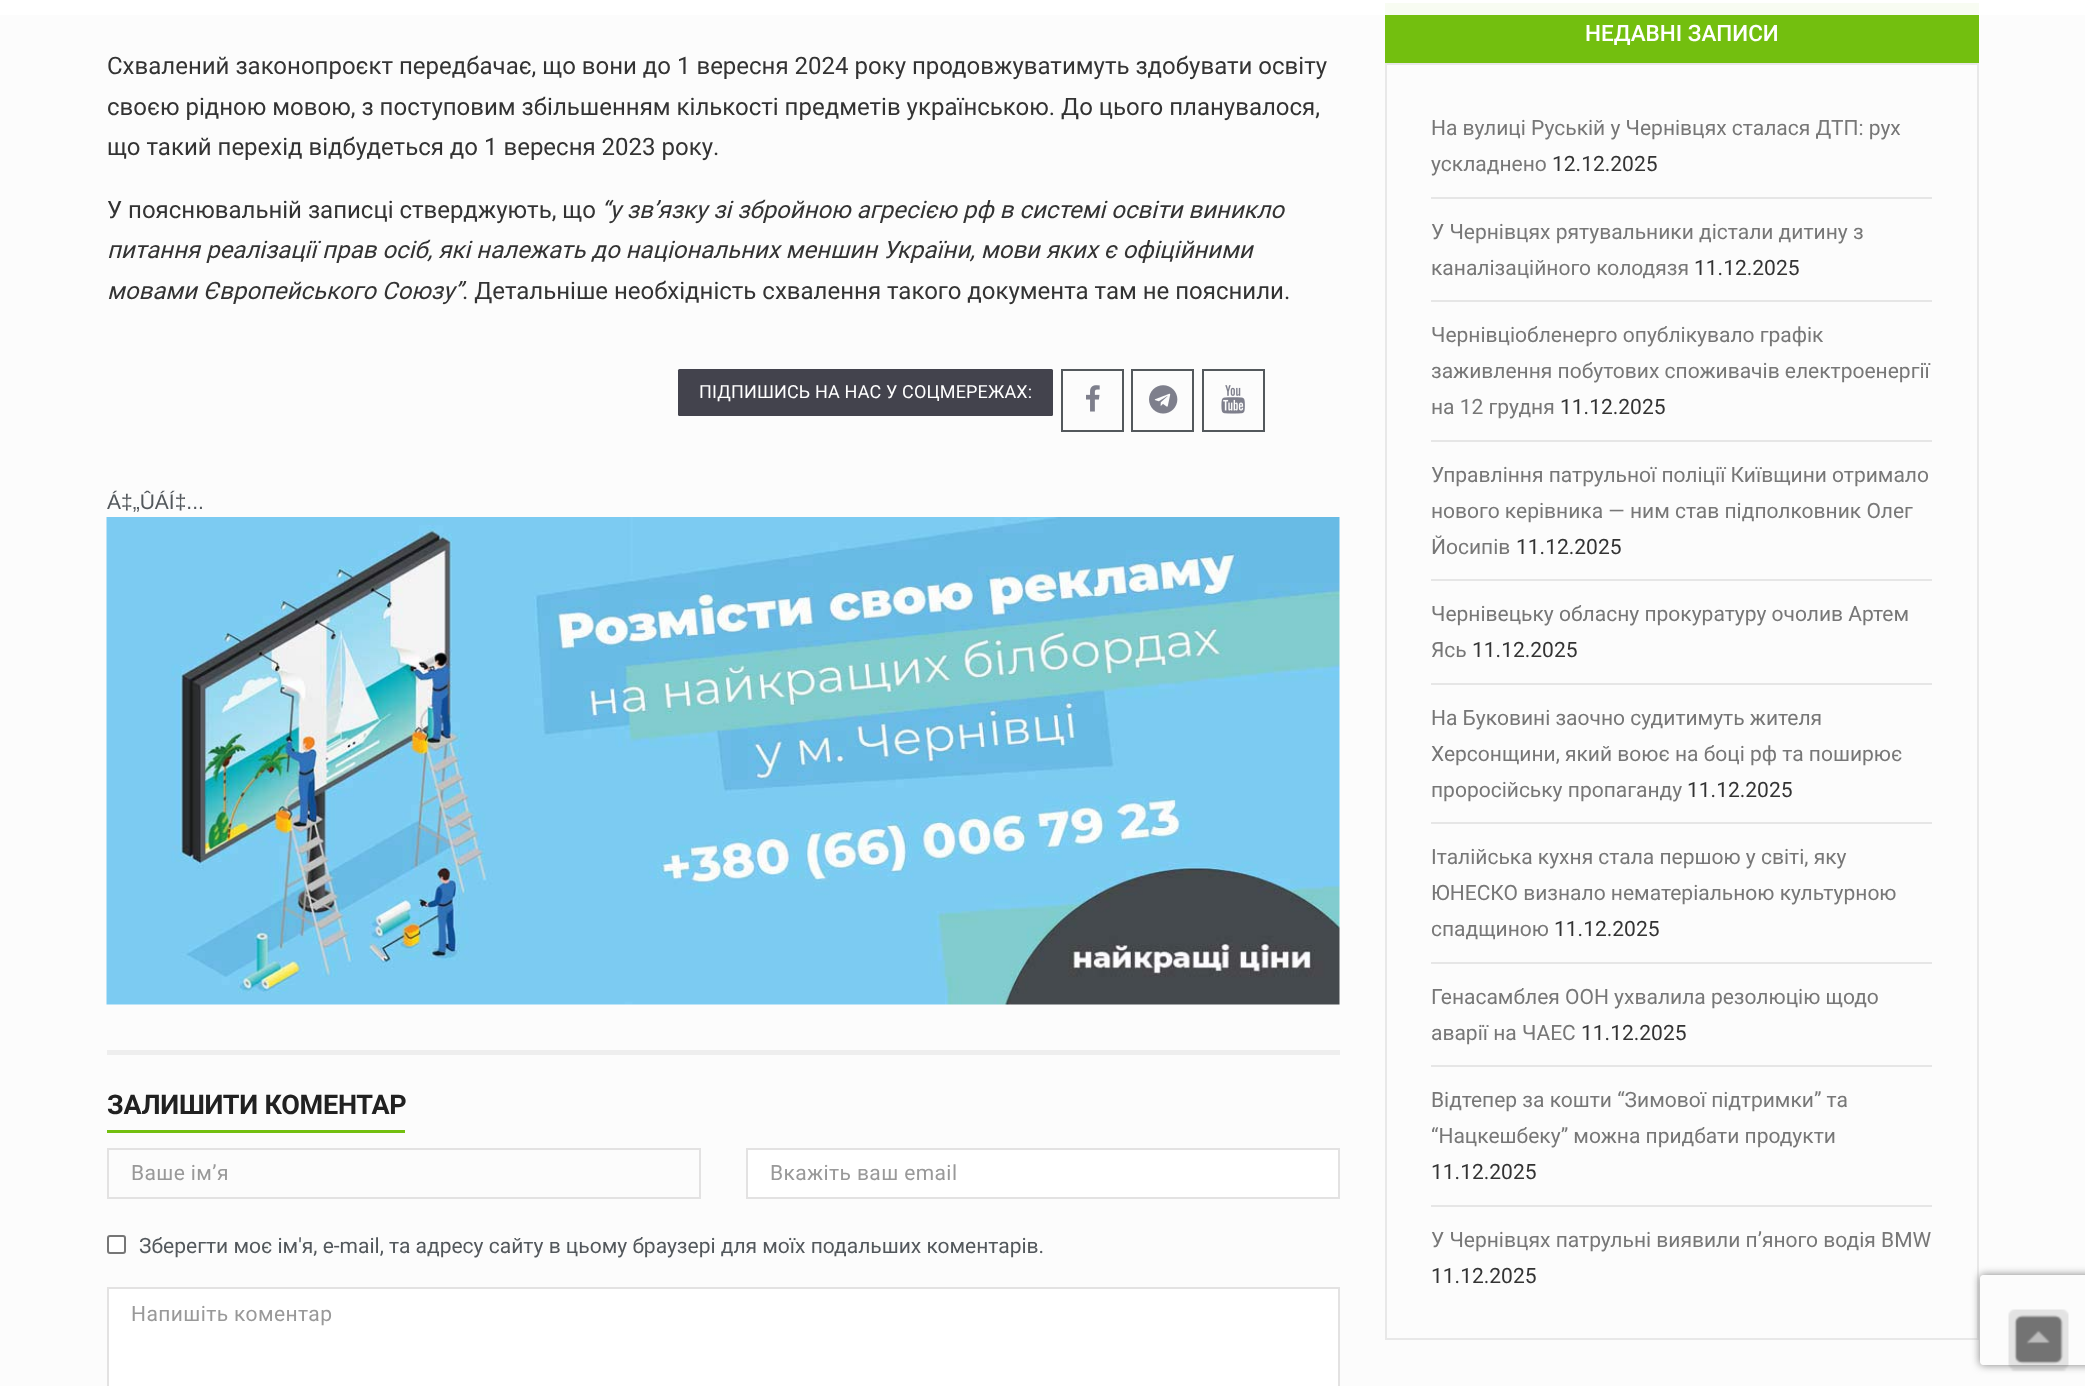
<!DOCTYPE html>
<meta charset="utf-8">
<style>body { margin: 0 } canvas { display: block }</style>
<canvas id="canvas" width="2085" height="1386"></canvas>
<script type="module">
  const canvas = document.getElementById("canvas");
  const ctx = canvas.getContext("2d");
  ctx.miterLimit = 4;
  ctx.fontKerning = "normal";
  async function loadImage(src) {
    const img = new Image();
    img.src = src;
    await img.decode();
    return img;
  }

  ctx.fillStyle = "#fcfcfc";
  ctx.fillRect(0, 0, 2085, 1386);
  ctx.fillStyle = "#73bf0f";
  ctx.fillRect(1385, 3, 594, 60);
  ctx.fillStyle = "rgba(255, 255, 255, 0.95)";
  ctx.fillRect(0, 0, 2085, 15);
  ctx.font = "24px Roboto";
  ctx.fillStyle = "#333333";
  ctx.fillText("Схвалений законопроєкт передбачає, що вони до 1 вересня 2024 року продовжуватимуть здобувати освіту", 107, 74);
  ctx.fillText("своєю рідною мовою, з поступовим збільшенням кількості предметів українською. До цього планувалося,", 107, 115);
  ctx.fillText("що такий перехід відбудеться до 1 вересня 2023 року.", 107, 155);
  ctx.fillText("У пояснювальній записці стверджують, що", 107, 218);
  ctx.font = "italic 24px Roboto";
  ctx.fillText("“у зв’язку зі збройною агресією рф в системі освіти виникло", 601, 218);
  ctx.fillText("питання реалізації прав осіб, які належать до національних меншин України, мови яких є офіційними", 107, 258);
  ctx.fillText("мовами Європейського Союзу”", 107, 299);
  ctx.font = "24px Roboto";
  ctx.fillText(". Детальніше необхідність схвалення такого документа там не пояснили.", 462, 299);
  ctx.fillStyle = "#43434d";
  ctx.beginPath();
  ctx.roundRect(678, 369, 375, 47, 1.5);
  ctx.fill();
  ctx.letterSpacing = "0.15px";
  ctx.font = "18px Roboto";
  ctx.fillStyle = "#ffffff";
  ctx.fillText("ПІДПИШИСЬ НА НАС У СОЦМЕРЕЖАХ:", 699, 398);
  ctx.strokeStyle = "#53585c";
  ctx.lineWidth = 2;
  ctx.strokeRect(1062, 370, 61, 61);
  ctx.drawImage(await loadImage("img1.png"), 1086, 385, 14, 27);
  ctx.strokeRect(1132, 370, 61, 61);
  ctx.drawImage(await loadImage("img2.png"), 1149, 385, 29, 29);
  ctx.strokeRect(1203, 370, 61, 61);
  ctx.drawImage(await loadImage("img3.png"), 1221, 385, 24, 29);
  ctx.letterSpacing = "0px";
  ctx.font = "21px Liberation Sans";
  ctx.fillStyle = "#53585c";
  ctx.fillText("Á‡„ÛÁÍ‡...", 107, 509);
  ctx.drawImage(await loadImage("img4.png"), 106, 517, 1234, 488);
  ctx.fillStyle = "#eeeeee";
  ctx.fillRect(107, 1050, 1233, 5);
  ctx.fillStyle = "#73bf0f";
  ctx.fillRect(107, 1130, 298, 3);
  ctx.letterSpacing = "-0.25px";
  ctx.font = "bold 27px Roboto";
  ctx.fillStyle = "#212121";
  ctx.fillText("ЗАЛИШИТИ КОМЕНТАР", 107, 1114);
  ctx.strokeStyle = "#e3e2e2";
  ctx.strokeRect(108, 1149, 592, 49);
  ctx.letterSpacing = "0.4px";
  ctx.font = "21px Roboto";
  ctx.fillStyle = "#999999";
  ctx.fillText("Ваше ім’я", 131, 1180);
  ctx.fillStyle = "#ffffff";
  ctx.beginPath();
  ctx.rect(747, 1149, 592, 49);
  ctx.fill();
  ctx.stroke();
  ctx.fillStyle = "#999999";
  ctx.fillText("Вкажіть ваш email", 770, 1180);
  ctx.fillStyle = "#ffffff";
  ctx.beginPath();
  ctx.roundRect(108, 1236, 17, 17, 2);
  ctx.fill();
  ctx.strokeStyle = "#767676";
  ctx.stroke();
  ctx.letterSpacing = "0px";
  ctx.fillStyle = "#53585c";
  ctx.fillText("Зберегти моє ім'я, e-mail, та адресу сайту в цьому браузері для моїх подальших коментарів.", 139, 1253);
  ctx.fillStyle = "#ffffff";
  ctx.beginPath();
  ctx.rect(108, 1288, 1231, 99);
  ctx.fill();
  ctx.strokeStyle = "#e3e2e2";
  ctx.stroke();
  ctx.letterSpacing = "0.4px";
  ctx.fillStyle = "#999999";
  ctx.fillText("Напишіть коментар", 131, 1321);
  ctx.letterSpacing = "0px";
  ctx.font = "500 22.5px Roboto";
  ctx.fillStyle = "#ffffff";
  ctx.fillText("НЕДАВНІ ЗАПИСИ", 1585, 41);
  ctx.strokeStyle = "#e8e8e8";
  ctx.strokeRect(1386, 64, 592, 1275);
  ctx.font = "21px Roboto";
  ctx.fillStyle = "#777777";
  ctx.fillText("На вулиці Руській у Чернівцях сталася ДТП: рух", 1431, 135);
  ctx.fillText("ускладнено", 1431, 171);
  ctx.fillStyle = "#333333";
  ctx.fillText("12.12.2025", 1552, 171);
  ctx.fillStyle = "#e6e6e6";
  ctx.fillRect(1431, 197, 501, 2);
  ctx.fillStyle = "#777777";
  ctx.fillText("У Чернівцях рятувальники дістали дитину з", 1431, 239);
  ctx.fillText("каналізаційного колодязя", 1431, 275);
  ctx.fillStyle = "#333333";
  ctx.fillText("11.12.2025", 1694, 275);
  ctx.fillStyle = "#e6e6e6";
  ctx.fillRect(1431, 300, 501, 2);
  ctx.fillStyle = "#777777";
  ctx.fillText("Чернівціобленерго опублікувало графік", 1431, 342);
  ctx.fillText("заживлення побутових споживачів електроенергії", 1431, 378);
  ctx.fillText("на 12 грудня", 1431, 414);
  ctx.fillStyle = "#333333";
  ctx.fillText("11.12.2025", 1560, 414);
  ctx.fillStyle = "#e6e6e6";
  ctx.fillRect(1431, 440, 501, 2);
  ctx.fillStyle = "#777777";
  ctx.fillText("Управління патрульної поліції Київщини отримало", 1431, 482);
  ctx.fillText("нового керівника — ним став підполковник Олег", 1431, 518);
  ctx.fillText("Йосипів", 1431, 554);
  ctx.fillStyle = "#333333";
  ctx.fillText("11.12.2025", 1516, 554);
  ctx.fillStyle = "#e6e6e6";
  ctx.fillRect(1431, 579, 501, 2);
  ctx.fillStyle = "#777777";
  ctx.fillText("Чернівецьку обласну прокуратуру очолив Артем", 1431, 621);
  ctx.fillText("Ясь", 1431, 657);
  ctx.fillStyle = "#333333";
  ctx.fillText("11.12.2025", 1472, 657);
  ctx.fillStyle = "#e6e6e6";
  ctx.fillRect(1431, 683, 501, 2);
  ctx.fillStyle = "#777777";
  ctx.fillText("На Буковині заочно судитимуть жителя", 1431, 725);
  ctx.fillText("Херсонщини, який воює на боці рф та поширює", 1431, 761);
  ctx.fillText("проросійську пропаганду", 1431, 797);
  ctx.fillStyle = "#333333";
  ctx.fillText("11.12.2025", 1687, 797);
  ctx.fillStyle = "#e6e6e6";
  ctx.fillRect(1431, 822, 501, 2);
  ctx.fillStyle = "#777777";
  ctx.fillText("Італійська кухня стала першою у світі, яку", 1431, 864);
  ctx.fillText("ЮНЕСКО визнало нематеріальною культурною", 1431, 900);
  ctx.fillText("спадщиною", 1431, 936);
  ctx.fillStyle = "#333333";
  ctx.fillText("11.12.2025", 1554, 936);
  ctx.fillStyle = "#e6e6e6";
  ctx.fillRect(1431, 962, 501, 2);
  ctx.fillStyle = "#777777";
  ctx.fillText("Генасамблея ООН ухвалила резолюцію щодо", 1431, 1004);
  ctx.fillText("аварії на ЧАЕС", 1431, 1040);
  ctx.fillStyle = "#333333";
  ctx.fillText("11.12.2025", 1581, 1040);
  ctx.fillStyle = "#e6e6e6";
  ctx.fillRect(1431, 1065, 501, 2);
  ctx.fillStyle = "#777777";
  ctx.fillText("Відтепер за кошти “Зимової підтримки” та", 1431, 1107);
  ctx.fillText("“Нацкешбеку” можна придбати продукти", 1431, 1143);
  ctx.fillStyle = "#333333";
  ctx.fillText("11.12.2025", 1431, 1179);
  ctx.fillStyle = "#e6e6e6";
  ctx.fillRect(1431, 1205, 501, 2);
  ctx.fillStyle = "#777777";
  ctx.fillText("У Чернівцях патрульні виявили п’яного водія BMW", 1431, 1247);
  ctx.fillStyle = "#333333";
  ctx.fillText("11.12.2025", 1431, 1283);
  ctx.save();
  ctx.beginPath();
  ctx.moveTo(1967, 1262);
  ctx.lineTo(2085, 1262);
  ctx.lineTo(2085, 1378);
  ctx.lineTo(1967, 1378);
  ctx.closePath();
  ctx.moveTo(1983, 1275);
  ctx.lineTo(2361, 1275);
  ctx.bezierCurveTo(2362.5, 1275, 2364, 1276.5, 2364, 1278);
  ctx.lineTo(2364, 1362);
  ctx.bezierCurveTo(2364, 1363.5, 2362.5, 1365, 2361, 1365);
  ctx.lineTo(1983, 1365);
  ctx.bezierCurveTo(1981.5, 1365, 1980, 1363.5, 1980, 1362);
  ctx.lineTo(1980, 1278);
  ctx.bezierCurveTo(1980, 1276.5, 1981.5, 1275, 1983, 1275);
  ctx.closePath();
  ctx.clip("evenodd");
  ctx.fillStyle = "#808080";
  ctx.filter = "blur(4px)";
  ctx.beginPath();
  ctx.roundRect(1980, 1275, 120, 90, 3);
  ctx.fill();
  ctx.filter = "none";
  ctx.restore();
  ctx.drawImage(await loadImage("img5.png"), 2008, 1309, 61, 63);
</script>
